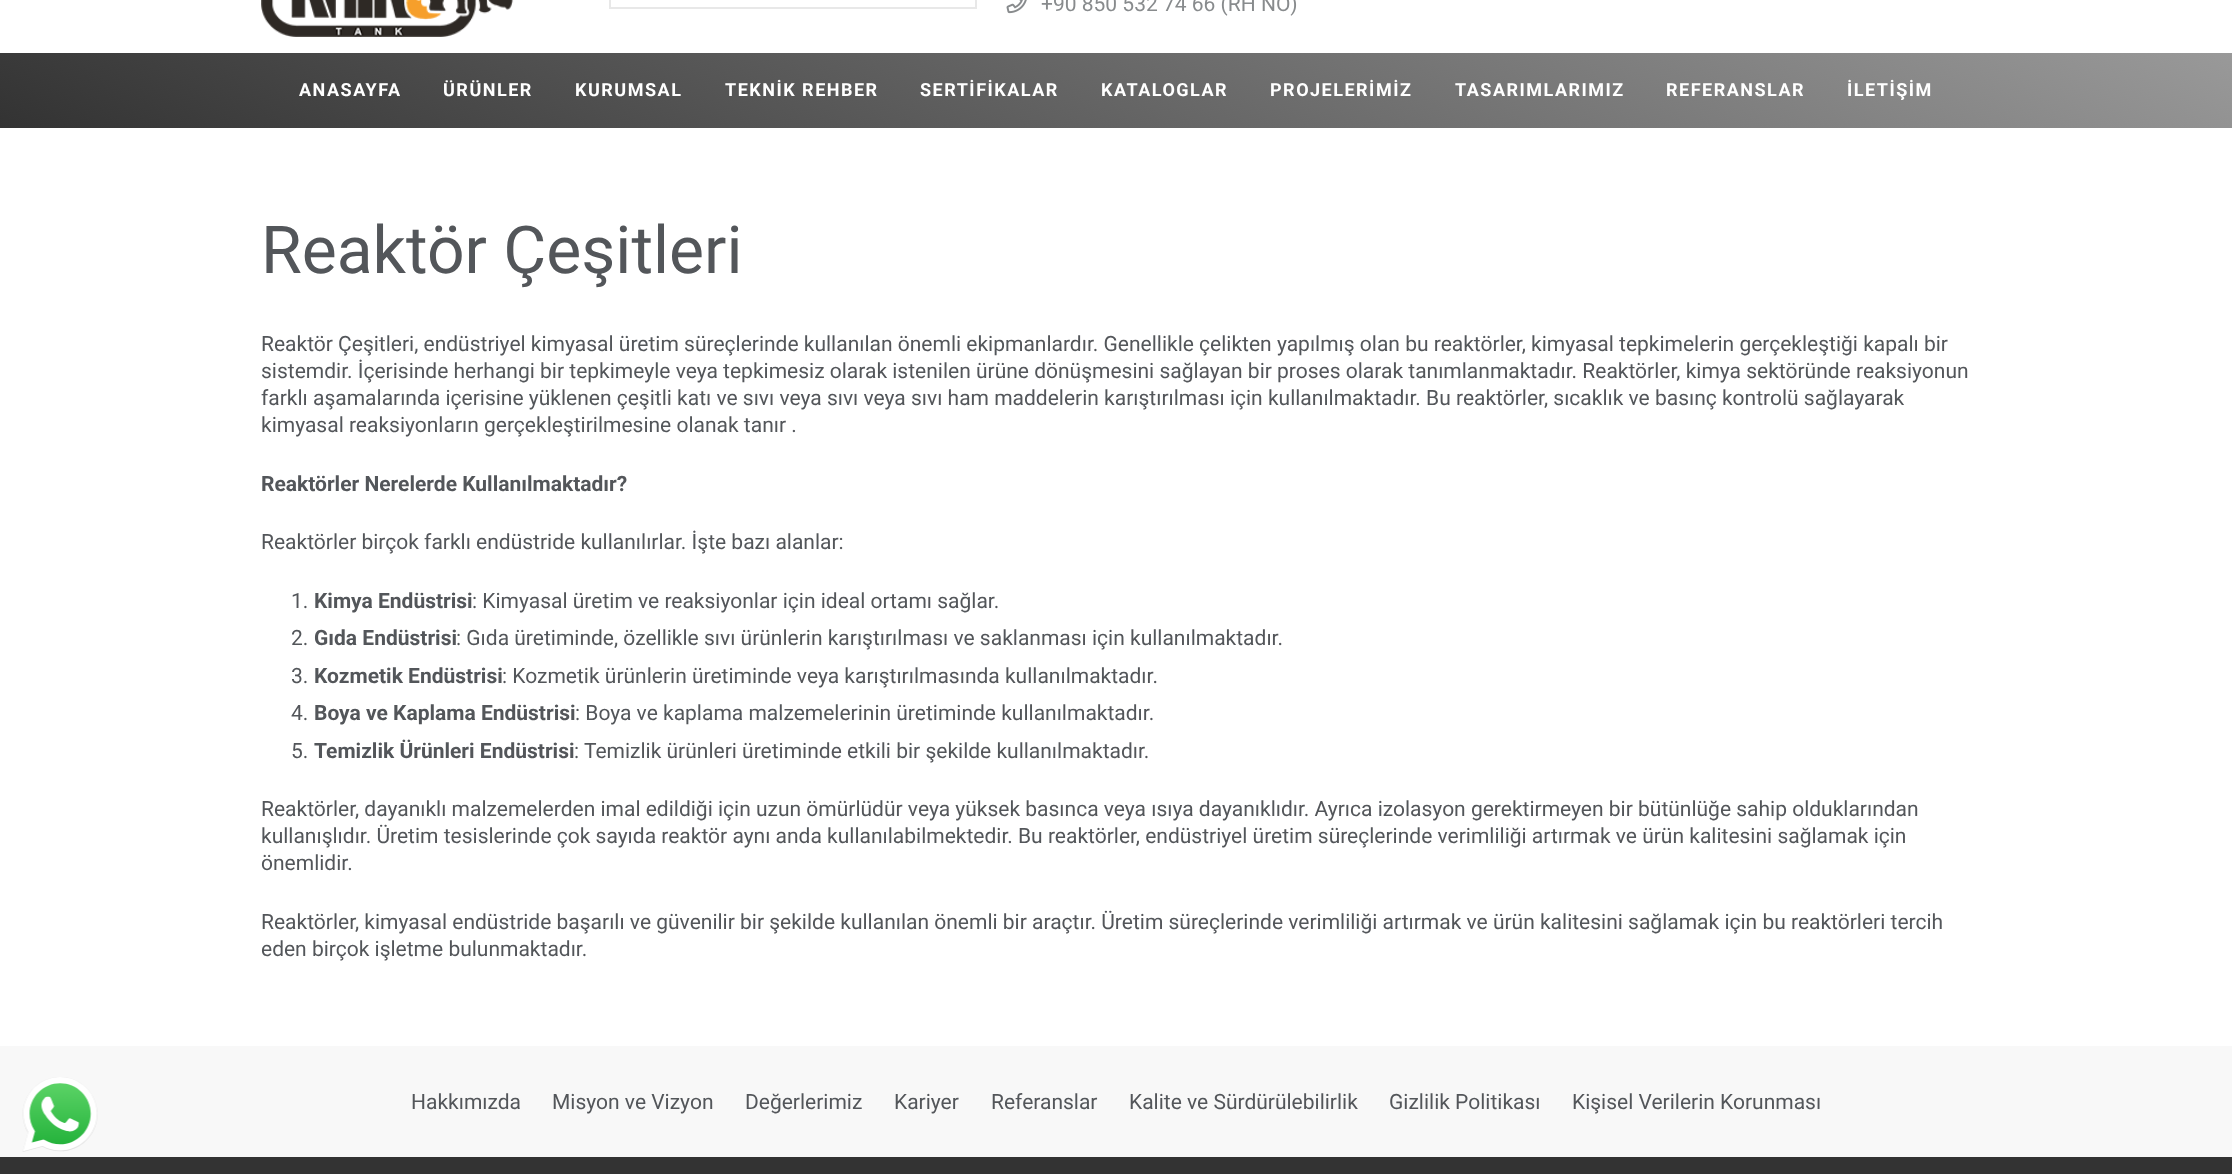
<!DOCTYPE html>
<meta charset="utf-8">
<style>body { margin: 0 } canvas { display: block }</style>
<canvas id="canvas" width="2232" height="1174"></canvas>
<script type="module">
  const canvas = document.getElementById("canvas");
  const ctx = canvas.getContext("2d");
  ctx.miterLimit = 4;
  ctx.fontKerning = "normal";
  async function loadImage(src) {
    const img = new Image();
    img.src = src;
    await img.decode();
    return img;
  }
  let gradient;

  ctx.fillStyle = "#ffffff";
  ctx.fillRect(0, 0, 2232, 1174);
  ctx.drawImage(await loadImage("img1.png"), 261, 0, 253, 37);
  ctx.strokeStyle = "#e8e8e8";
  ctx.lineWidth = 2;
  ctx.strokeRect(610, -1, 366, 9);
  ctx.drawImage(await loadImage("img2.png"), 1006, 0, 21, 14);
  ctx.font = "21px Roboto";
  ctx.fillStyle = "#888b8d";
  ctx.fillText("+90 850 532 74 66 (RH NO)", 1041, 11);
  gradient = ctx.createLinearGradient(1330, -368, 902, 548);
  gradient.addColorStop(0, "#999999");
  gradient.addColorStop(1, "#333333");
  ctx.fillStyle = gradient;
  ctx.fillRect(0, 53, 2232, 75);
  ctx.letterSpacing = "1.5px";
  ctx.font = "bold 18px Roboto";
  ctx.fillStyle = "#ffffff";
  ctx.fillText("ANASAYFA", 299, 96);
  ctx.fillText("ÜRÜNLER", 443, 96);
  ctx.fillText("KURUMSAL", 575, 96);
  ctx.fillText("TEKNİK REHBER", 725, 96);
  ctx.fillText("SERTİFİKALAR", 920, 96);
  ctx.fillText("KATALOGLAR", 1101, 96);
  ctx.fillText("PROJELERİMİZ", 1270, 96);
  ctx.fillText("TASARIMLARIMIZ", 1455, 96);
  ctx.fillText("REFERANSLAR", 1666, 96);
  ctx.fillText("İLETİŞİM", 1847, 96);
  ctx.letterSpacing = "0px";
  ctx.font = "66px Roboto";
  ctx.fillStyle = "#53565a";
  ctx.fillText("Reaktör Çeşitleri", 261, 273);
  ctx.font = "21px Roboto";
  ctx.fillText("Reaktör Çeşitleri, endüstriyel kimyasal üretim süreçlerinde kullanılan önemli ekipmanlardır. Genellikle çelikten yapılmış olan bu reaktörler, kimyasal tepkimelerin gerçekleştiği kapalı bir", 261, 351);
  ctx.fillText("sistemdir. İçerisinde herhangi bir tepkimeyle veya tepkimesiz olarak istenilen ürüne dönüşmesini sağlayan bir proses olarak tanımlanmaktadır. Reaktörler, kimya sektöründe reaksiyonun", 261, 378);
  ctx.fillText("farklı aşamalarında içerisine yüklenen çeşitli katı ve sıvı veya sıvı veya sıvı ham maddelerin karıştırılması için kullanılmaktadır. Bu reaktörler, sıcaklık ve basınç kontrolü sağlayarak", 261, 405);
  ctx.fillText("kimyasal reaksiyonların gerçekleştirilmesine olanak tanır .", 261, 432);
  ctx.font = "bold 21px Roboto";
  ctx.fillText("Reaktörler Nerelerde Kullanılmaktadır?", 261, 491);
  ctx.font = "21px Roboto";
  ctx.fillText("Reaktörler birçok farklı endüstride kullanılırlar. İşte bazı alanlar:", 261, 549);
  ctx.fillText("1.", 291, 608);
  ctx.font = "bold 21px Roboto";
  ctx.fillText("Kimya Endüstrisi", 314, 608);
  ctx.font = "21px Roboto";
  ctx.fillText(": Kimyasal üretim ve reaksiyonlar için ideal ortamı sağlar.", 472, 608);
  ctx.fillText("2.", 291, 645);
  ctx.font = "bold 21px Roboto";
  ctx.fillText("Gıda Endüstrisi", 314, 645);
  ctx.font = "21px Roboto";
  ctx.fillText(": Gıda üretiminde, özellikle sıvı ürünlerin karıştırılması ve saklanması için kullanılmaktadır.", 456, 645);
  ctx.fillText("3.", 291, 683);
  ctx.font = "bold 21px Roboto";
  ctx.fillText("Kozmetik Endüstrisi", 314, 683);
  ctx.font = "21px Roboto";
  ctx.fillText(": Kozmetik ürünlerin üretiminde veya karıştırılmasında kullanılmaktadır.", 502, 683);
  ctx.fillText("4.", 291, 720);
  ctx.font = "bold 21px Roboto";
  ctx.fillText("Boya ve Kaplama Endüstrisi", 314, 720);
  ctx.font = "21px Roboto";
  ctx.fillText(": Boya ve kaplama malzemelerinin üretiminde kullanılmaktadır.", 575, 720);
  ctx.fillText("5.", 291, 758);
  ctx.font = "bold 21px Roboto";
  ctx.fillText("Temizlik Ürünleri Endüstrisi", 314, 758);
  ctx.font = "21px Roboto";
  ctx.fillText(": Temizlik ürünleri üretiminde etkili bir şekilde kullanılmaktadır.", 574, 758);
  ctx.fillText("Reaktörler, dayanıklı malzemelerden imal edildiği için uzun ömürlüdür veya yüksek basınca veya ısıya dayanıklıdır. Ayrıca izolasyon gerektirmeyen bir bütünlüğe sahip olduklarından", 261, 816);
  ctx.fillText("kullanışlıdır. Üretim tesislerinde çok sayıda reaktör aynı anda kullanılabilmektedir. Bu reaktörler, endüstriyel üretim süreçlerinde verimliliği artırmak ve ürün kalitesini sağlamak için", 261, 843);
  ctx.fillText("önemlidir.", 261, 870);
  ctx.fillText("Reaktörler, kimyasal endüstride başarılı ve güvenilir bir şekilde kullanılan önemli bir araçtır. Üretim süreçlerinde verimliliği artırmak ve ürün kalitesini sağlamak için bu reaktörleri tercih", 261, 929);
  ctx.fillText("eden birçok işletme bulunmaktadır.", 261, 956);
  ctx.fillStyle = "#f8f8f8";
  ctx.fillRect(0, 1046, 2232, 111);
  ctx.drawImage(await loadImage("img3.png"), 22, 1077, 76, 75);
  ctx.fillStyle = "#53565a";
  ctx.fillText("Hakkımızda", 411, 1109);
  ctx.fillText("Misyon ve Vizyon", 552, 1109);
  ctx.fillText("Değerlerimiz", 745, 1109);
  ctx.fillText("Kariyer", 894, 1109);
  ctx.fillText("Referanslar", 991, 1109);
  ctx.fillText("Kalite ve Sürdürülebilirlik", 1129, 1109);
  ctx.fillText("Gizlilik Politikası", 1389, 1109);
  ctx.fillText("Kişisel Verilerin Korunması", 1572, 1109);
  ctx.fillStyle = "#333333";
  ctx.fillRect(0, 1157, 2232, 17);
</script>
